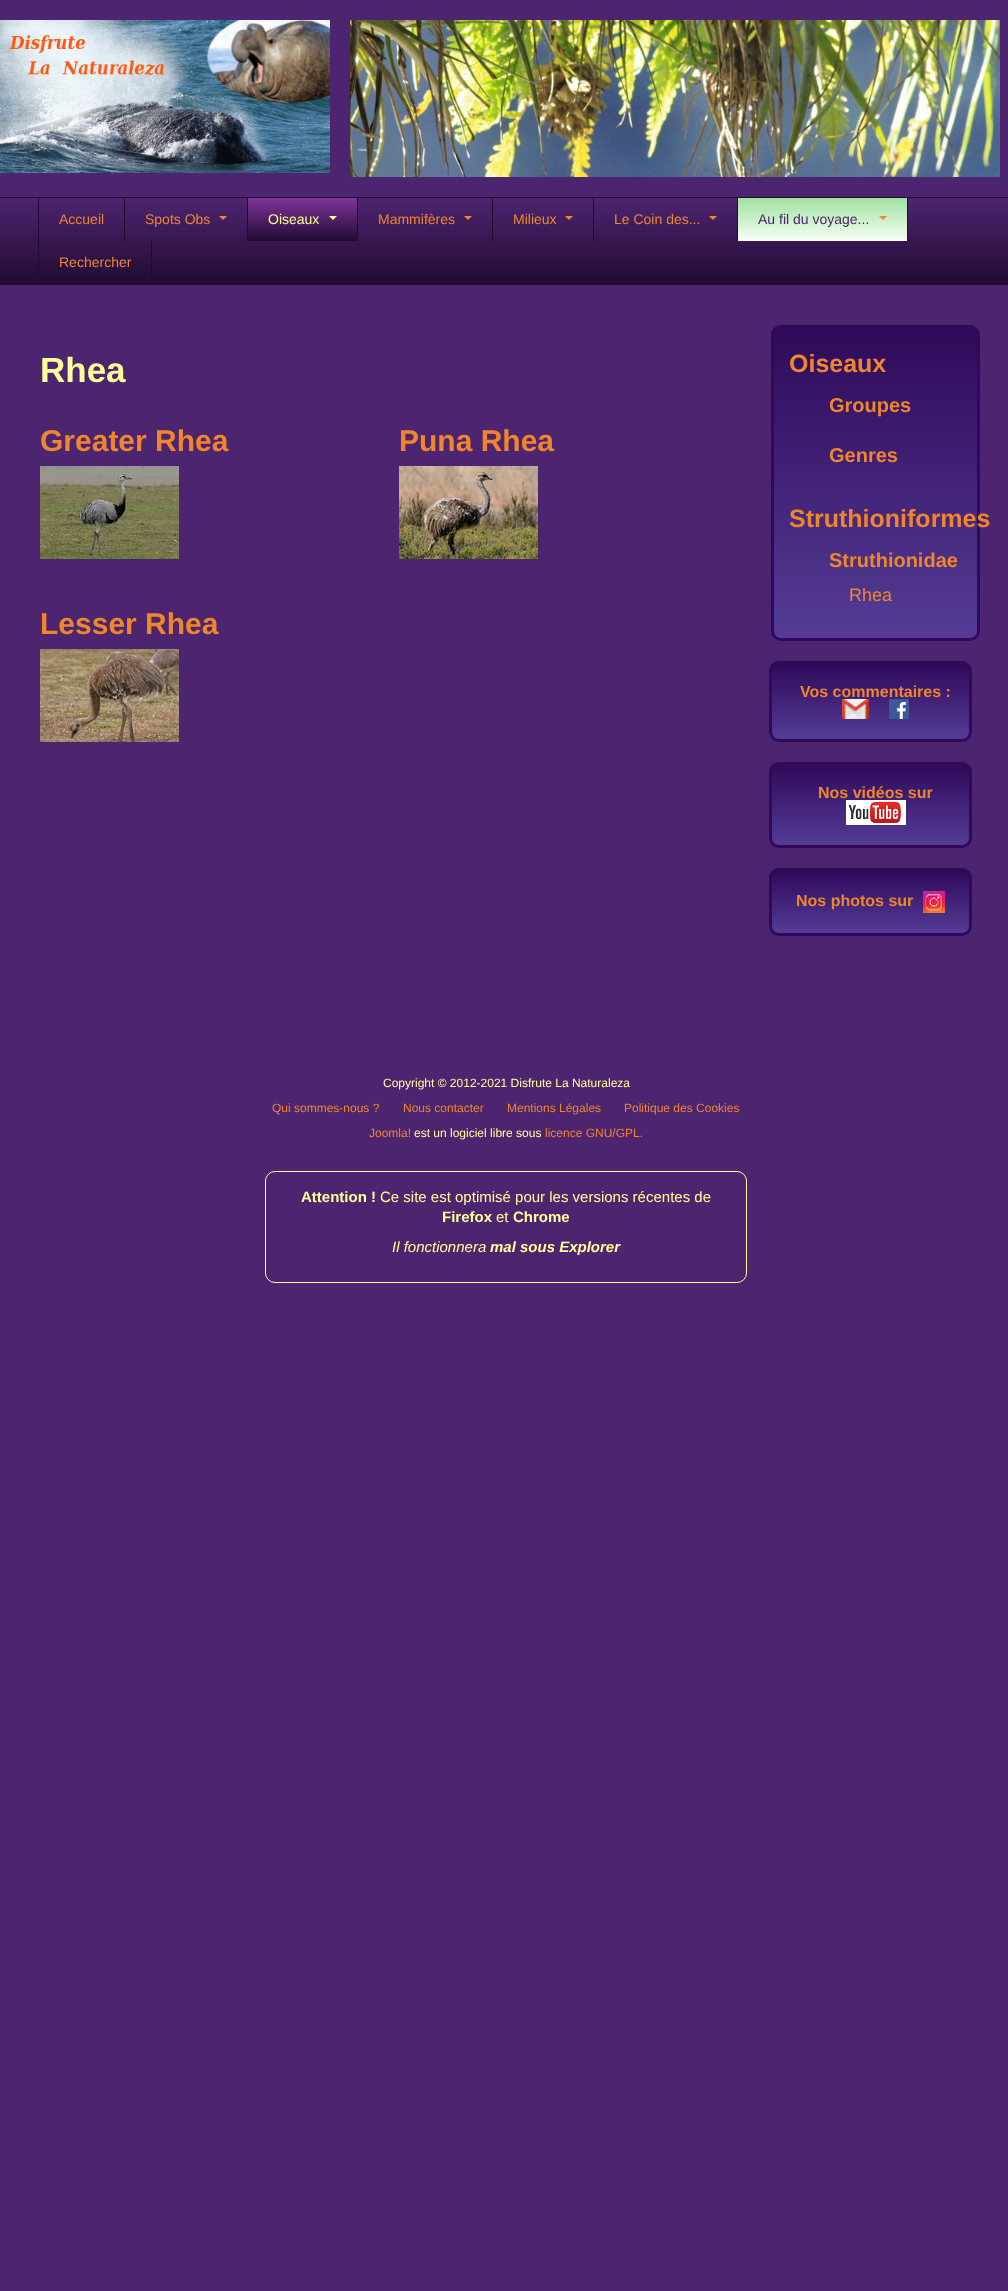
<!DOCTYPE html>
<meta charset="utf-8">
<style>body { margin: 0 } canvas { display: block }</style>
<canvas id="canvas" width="1008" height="2291"></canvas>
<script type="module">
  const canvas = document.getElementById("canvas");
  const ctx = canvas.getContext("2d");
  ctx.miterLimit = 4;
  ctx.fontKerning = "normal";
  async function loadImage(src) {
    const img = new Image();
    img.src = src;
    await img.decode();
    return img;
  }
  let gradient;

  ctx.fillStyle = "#4d246f";
  ctx.fillRect(0, 0, 1008, 2291);
  ctx.drawImage(await loadImage("img1.png"), 0, 20, 330, 153);
  ctx.drawImage(await loadImage("img2.png"), 350, 20, 650, 157);
  gradient = ctx.createLinearGradient(504, 198, 504, 284);
  gradient.addColorStop(0, "#4d246f");
  gradient.addColorStop(1, "#210b33");
  ctx.fillStyle = gradient;
  ctx.fillRect(0, 202, 1008, 82);
  ctx.fillStyle = "#210b33";
  ctx.fillRect(0, 197, 1008, 1);
  ctx.fillRect(0, 284, 1008, 1);
  ctx.fillRect(38, 198, 1, 86);
  ctx.fillRect(124, 198, 1, 43);
  ctx.font = "14px Liberation Sans";
  ctx.fillStyle = "#ef862d";
  ctx.fillText("Accueil", 59, 224);
  ctx.fillStyle = "#210b33";
  ctx.fillRect(247, 198, 1, 43);
  ctx.fillStyle = "#ef862d";
  ctx.fillText("Spots Obs", 145, 224);
  ctx.beginPath();
  ctx.moveTo(219, 216);
  ctx.lineTo(227, 216);
  ctx.lineTo(223, 220);
  ctx.closePath();
  ctx.fill();
  gradient = ctx.createLinearGradient(303, 198, 303, 241);
  gradient.addColorStop(0, "#803499");
  gradient.addColorStop(1, "#210b33");
  ctx.fillStyle = gradient;
  ctx.fillRect(248, 198, 109, 43);
  ctx.fillStyle = "#210b33";
  ctx.fillRect(357, 198, 1, 43);
  ctx.fillStyle = "#ffff99";
  ctx.fillText("Oiseaux", 268, 224);
  ctx.beginPath();
  ctx.moveTo(329, 216);
  ctx.lineTo(337, 216);
  ctx.lineTo(333, 220);
  ctx.closePath();
  ctx.fill();
  ctx.fillStyle = "#210b33";
  ctx.fillRect(492, 198, 1, 43);
  ctx.fillStyle = "#ef862d";
  ctx.fillText("Mammifères", 378, 224);
  ctx.beginPath();
  ctx.moveTo(464, 216);
  ctx.lineTo(472, 216);
  ctx.lineTo(468, 220);
  ctx.closePath();
  ctx.fill();
  ctx.fillStyle = "#210b33";
  ctx.fillRect(593, 198, 1, 43);
  ctx.fillStyle = "#ef862d";
  ctx.fillText("Milieux", 513, 224);
  ctx.beginPath();
  ctx.moveTo(565, 216);
  ctx.lineTo(573, 216);
  ctx.lineTo(569, 220);
  ctx.closePath();
  ctx.fill();
  ctx.fillStyle = "#210b33";
  ctx.fillRect(737, 198, 1, 43);
  ctx.fillStyle = "#ef862d";
  ctx.fillText("Le Coin des...", 614, 224);
  ctx.beginPath();
  ctx.moveTo(709, 216);
  ctx.lineTo(717, 216);
  ctx.lineTo(713, 220);
  ctx.closePath();
  ctx.fill();
  gradient = ctx.createLinearGradient(823, 198, 823, 241);
  gradient.addColorStop(0, "#9fe19f");
  gradient.addColorStop(1, "#f8fff6");
  ctx.fillStyle = gradient;
  ctx.fillRect(738, 198, 169, 43);
  ctx.fillStyle = "#210b33";
  ctx.fillRect(907, 198, 1, 43);
  ctx.fillStyle = "#4d246f";
  ctx.fillText("Au fil du voyage...", 758, 224);
  ctx.fillStyle = "#ef862d";
  ctx.beginPath();
  ctx.moveTo(879, 216);
  ctx.lineTo(887, 216);
  ctx.lineTo(883, 220);
  ctx.closePath();
  ctx.fill();
  ctx.fillStyle = "#210b33";
  ctx.fillRect(151, 241, 1, 43);
  ctx.fillStyle = "#ef862d";
  ctx.fillText("Rechercher", 59, 267);
  ctx.font = "bold 35px Liberation Sans";
  ctx.fillStyle = "#ffff99";
  ctx.fillText("Rhea", 40, 382);
  ctx.font = "bold 30px Liberation Sans";
  ctx.fillStyle = "#ef862d";
  ctx.fillText("Greater Rhea", 40, 451);
  ctx.drawImage(await loadImage("img3.png"), 40, 466, 139, 93);
  ctx.fillText("Puna Rhea", 399, 451);
  ctx.drawImage(await loadImage("img4.png"), 399, 466, 139, 93);
  ctx.fillText("Lesser Rhea", 40, 634);
  ctx.drawImage(await loadImage("img5.png"), 40, 649, 139, 93);
  ctx.save();
  ctx.beginPath();
  ctx.roundRect(771, 325, 209, 316, 10);
  ctx.clip();
  gradient = ctx.createLinearGradient(876, 328, 876, 638);
  gradient.addColorStop(0, "#2f0a5a");
  gradient.addColorStop(1, "#543c96");
  ctx.fillStyle = gradient;
  ctx.fillRect(771, 328, 209, 310);
  ctx.restore();
  ctx.beginPath();
  ctx.roundRect(772.5, 326.5, 206, 313, 8.5);
  ctx.strokeStyle = "#2f0a5a";
  ctx.lineWidth = 3;
  ctx.stroke();
  ctx.font = "bold 25px Liberation Sans";
  ctx.fillText("Oiseaux", 789, 372);
  ctx.font = "bold 20px Liberation Sans";
  ctx.fillText("Groupes", 829, 412);
  ctx.fillText("Genres", 829, 462);
  ctx.font = "bold 25px Liberation Sans";
  ctx.fillText("Struthioniformes", 789, 527);
  ctx.font = "bold 20px Liberation Sans";
  ctx.fillText("Struthionidae", 829, 567);
  ctx.font = "18px Liberation Sans";
  ctx.fillText("Rhea", 849, 601);
  ctx.save();
  ctx.beginPath();
  ctx.roundRect(769, 661, 203, 81, 10);
  ctx.clip();
  gradient = ctx.createLinearGradient(871, 664, 871, 739);
  gradient.addColorStop(0, "#2f0a5a");
  gradient.addColorStop(1, "#543c96");
  ctx.fillStyle = gradient;
  ctx.fillRect(769, 664, 203, 75);
  ctx.restore();
  ctx.beginPath();
  ctx.roundRect(770.5, 662.5, 200, 78, 8.5);
  ctx.stroke();
  ctx.font = "bold 16px Liberation Sans";
  ctx.fillText("Vos commentaires :", 800, 697);
  ctx.drawImage(await loadImage("img6.png"), 842, 699, 27, 20);
  ctx.drawImage(await loadImage("img7.png"), 889, 699, 20, 20);
  ctx.save();
  ctx.beginPath();
  ctx.roundRect(769, 762, 203, 86, 10);
  ctx.clip();
  gradient = ctx.createLinearGradient(871, 765, 871, 845);
  gradient.addColorStop(0, "#2f0a5a");
  gradient.addColorStop(1, "#543c96");
  ctx.fillStyle = gradient;
  ctx.fillRect(769, 765, 203, 80);
  ctx.restore();
  ctx.beginPath();
  ctx.roundRect(770.5, 763.5, 200, 83, 8.5);
  ctx.stroke();
  ctx.fillText("Nos vidéos sur", 818, 798);
  ctx.drawImage(await loadImage("img8.png"), 846, 800, 60, 25);
  ctx.save();
  ctx.beginPath();
  ctx.roundRect(769, 868, 203, 68, 10);
  ctx.clip();
  gradient = ctx.createLinearGradient(871, 871, 871, 933);
  gradient.addColorStop(0, "#2f0a5a");
  gradient.addColorStop(1, "#543c96");
  ctx.fillStyle = gradient;
  ctx.fillRect(769, 871, 203, 62);
  ctx.restore();
  ctx.beginPath();
  ctx.roundRect(770.5, 869.5, 200, 65, 8.5);
  ctx.stroke();
  ctx.fillText("Nos photos sur", 796, 906);
  ctx.drawImage(await loadImage("img9.png"), 923, 891, 22, 22);
  ctx.font = "12px Liberation Sans";
  ctx.fillStyle = "#ffff99";
  ctx.fillText("Copyright © 2012-2021 Disfrute La Naturaleza", 383, 1087);
  ctx.fillStyle = "#ef862d";
  ctx.fillText("Qui sommes-nous ?", 272, 1112);
  ctx.fillText("Nous contacter", 403, 1112);
  ctx.fillText("Mentions Légales", 507, 1112);
  ctx.fillText("Politique des Cookies", 624, 1112);
  ctx.fillText("Joomla!", 369, 1137);
  ctx.fillStyle = "#ffff99";
  ctx.fillText("est un logiciel libre sous", 414, 1137);
  ctx.fillStyle = "#ef862d";
  ctx.fillText("licence GNU/GPL.", 545, 1137);
  ctx.beginPath();
  ctx.roundRect(265.5, 1171.5, 481, 111, 9.5);
  ctx.strokeStyle = "#ffff99";
  ctx.lineWidth = 1;
  ctx.stroke();
  ctx.font = "bold 15px Liberation Sans";
  ctx.fillStyle = "#ffff99";
  ctx.fillText("Attention !", 301, 1202);
  ctx.font = "15px Liberation Sans";
  ctx.fillText("Ce site est optimisé pour les versions récentes de", 380, 1202);
  ctx.font = "bold 15px Liberation Sans";
  ctx.fillText("Firefox", 442, 1222);
  ctx.font = "15px Liberation Sans";
  ctx.fillText("et", 496, 1222);
  ctx.font = "bold 15px Liberation Sans";
  ctx.fillText("Chrome", 513, 1222);
  ctx.font = "italic 15px Liberation Sans";
  ctx.fillText("Il fonctionnera", 392, 1252);
  ctx.font = "italic bold 15px Liberation Sans";
  ctx.fillText("mal sous Explorer", 490, 1252);
</script>
